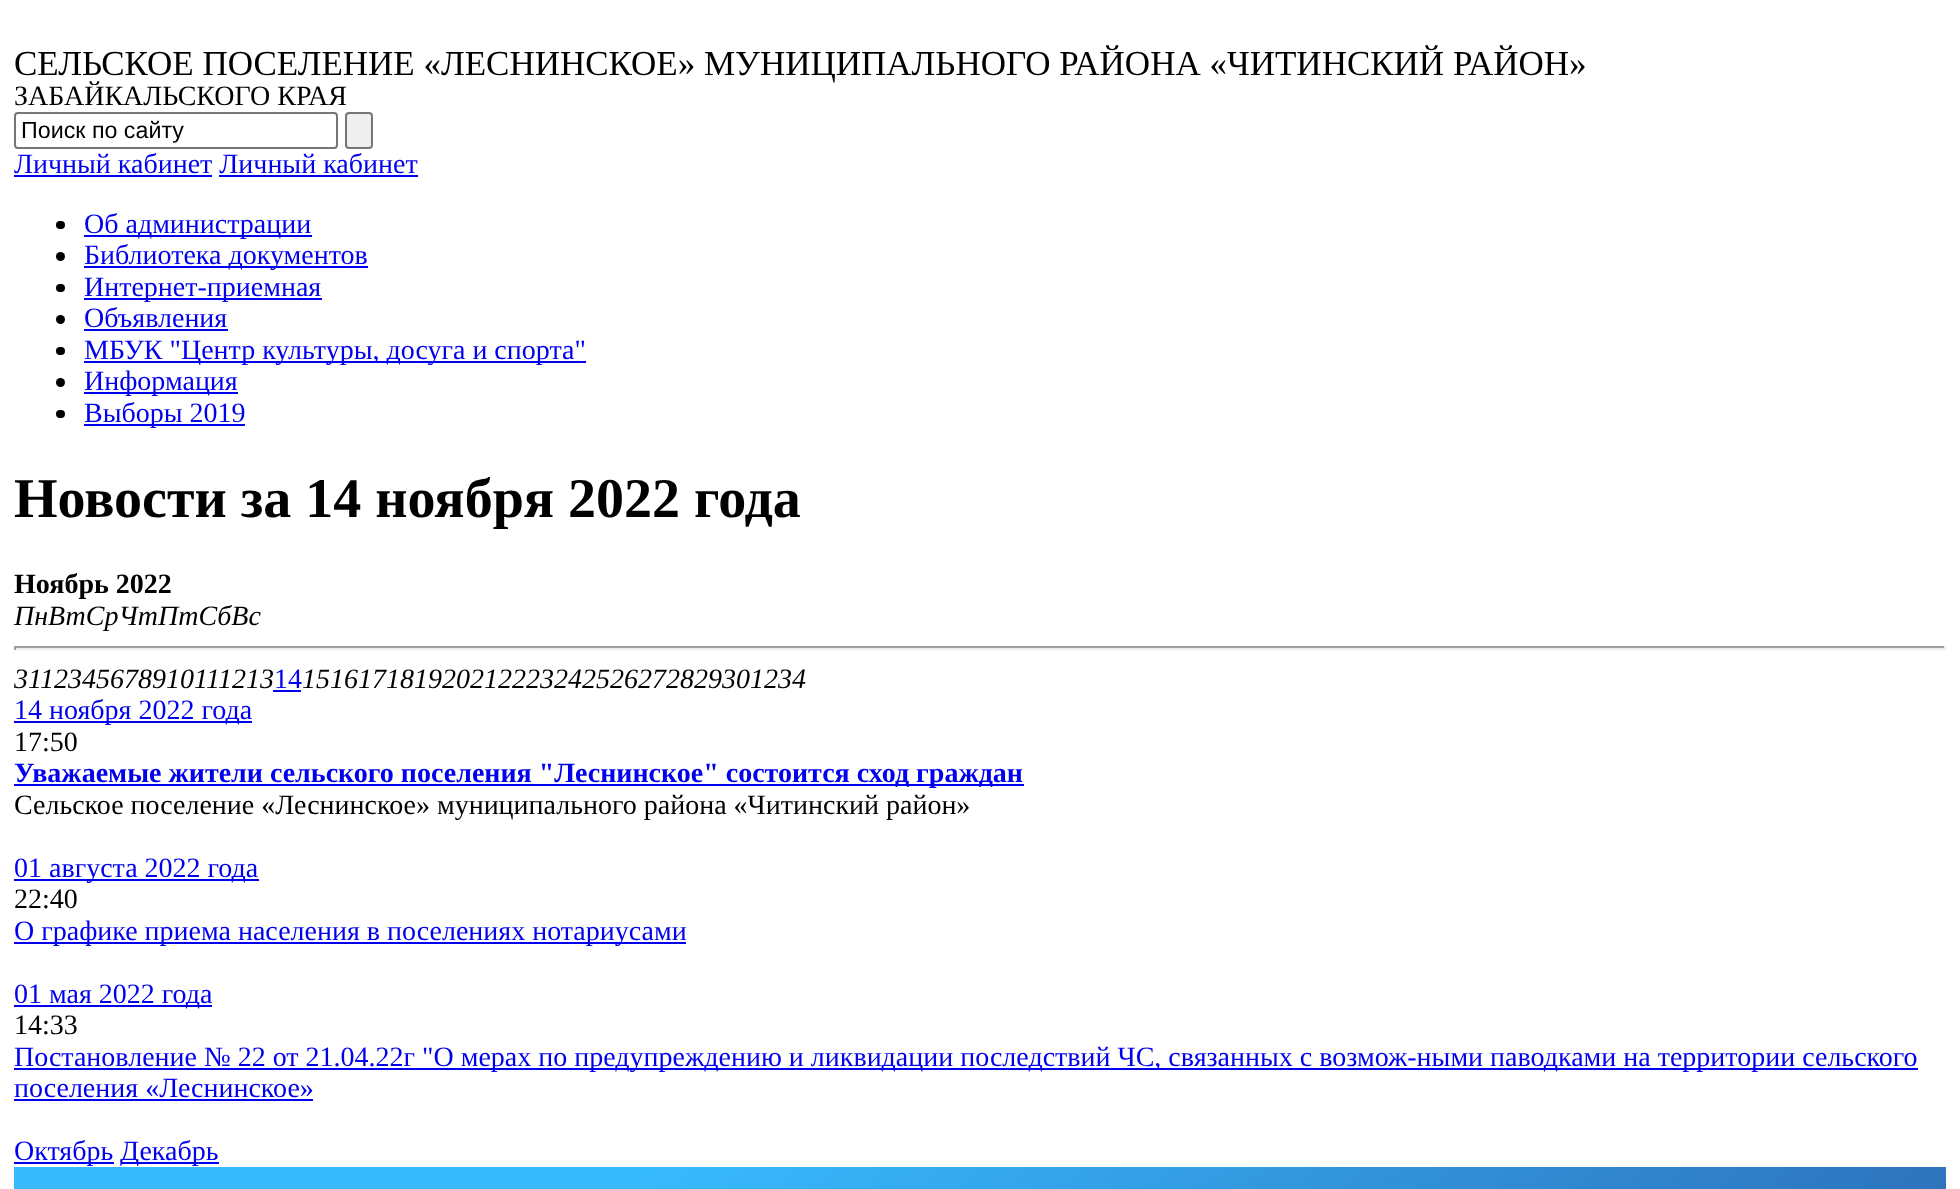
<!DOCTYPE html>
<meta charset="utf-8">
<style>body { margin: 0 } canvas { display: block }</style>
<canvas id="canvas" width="1960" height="1189"></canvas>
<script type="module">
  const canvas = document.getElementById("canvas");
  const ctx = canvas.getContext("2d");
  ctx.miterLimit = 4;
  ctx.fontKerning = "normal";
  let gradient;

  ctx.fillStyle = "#ffffff";
  ctx.fillRect(0, 0, 1960, 1189);
  ctx.font = "35px Liberation Serif";
  ctx.fillStyle = "#000000";
  ctx.fillText("СЕЛЬСКОЕ ПОСЕЛЕНИЕ «ЛЕСНИНСКОЕ» МУНИЦИПАЛЬНОГО РАЙОНА «ЧИТИНСКИЙ РАЙОН»", 14, 75);
  ctx.font = "28px Liberation Serif";
  ctx.fillText("ЗАБАЙКАЛЬСКОГО КРАЯ", 14, 105);
  ctx.beginPath();
  ctx.roundRect(15, 113, 322, 35, 3);
  ctx.strokeStyle = "#767676";
  ctx.lineWidth = 2;
  ctx.stroke();
  ctx.font = "23.25px Liberation Sans";
  ctx.fillText("Поиск по сайту", 21, 138);
  ctx.fillStyle = "#efefef";
  ctx.beginPath();
  ctx.roundRect(346, 113, 26, 35, 3);
  ctx.fill();
  ctx.stroke();
  ctx.font = "28px Liberation Serif";
  ctx.fillStyle = "#0000ee";
  ctx.fillText("Личный кабинет Личный кабинет", 14, 173);
  ctx.fillRect(14, 175, 198, 2);
  ctx.fillRect(219, 175, 199, 2);
  ctx.fillStyle = "#000000";
  ctx.beginPath();
  ctx.roundRect(56, 221, 9, 8, 4);
  ctx.fill();
  ctx.fillStyle = "#0000ee";
  ctx.fillRect(84, 235, 228, 2);
  ctx.fillText("Об администрации", 84, 233);
  ctx.fillStyle = "#000000";
  ctx.beginPath();
  ctx.arc(60.5, 256.5, 4.5, 0, Math.PI * 2);
  ctx.fill();
  ctx.fillStyle = "#0000ee";
  ctx.fillRect(84, 266, 284, 2);
  ctx.fillText("Библиотека документов", 84, 264);
  ctx.fillStyle = "#000000";
  ctx.beginPath();
  ctx.roundRect(56, 284, 9, 8, 4);
  ctx.fill();
  ctx.fillStyle = "#0000ee";
  ctx.fillRect(84, 298, 238, 2);
  ctx.fillText("Интернет-приемная", 84, 296);
  ctx.fillStyle = "#000000";
  ctx.beginPath();
  ctx.arc(60.5, 319.5, 4.5, 0, Math.PI * 2);
  ctx.fill();
  ctx.fillStyle = "#0000ee";
  ctx.fillText("Объявления", 84, 327);
  ctx.fillRect(84, 329, 144, 2);
  ctx.fillStyle = "#000000";
  ctx.beginPath();
  ctx.roundRect(56, 347, 9, 8, 4);
  ctx.fill();
  ctx.fillStyle = "#0000ee";
  ctx.fillRect(84, 361, 502, 2);
  ctx.fillText("МБУК \"Центр культуры, досуга и спорта\"", 84, 359);
  ctx.fillStyle = "#000000";
  ctx.beginPath();
  ctx.arc(60.5, 382.5, 4.5, 0, Math.PI * 2);
  ctx.fill();
  ctx.fillStyle = "#0000ee";
  ctx.fillRect(84, 392, 154, 2);
  ctx.fillText("Информация", 84, 390);
  ctx.fillStyle = "#000000";
  ctx.beginPath();
  ctx.roundRect(56, 410, 9, 8, 4);
  ctx.fill();
  ctx.fillStyle = "#0000ee";
  ctx.fillRect(84, 424, 161, 2);
  ctx.fillText("Выборы 2019", 84, 422);
  ctx.font = "bold 56px Liberation Serif";
  ctx.fillStyle = "#000000";
  ctx.fillText("Новости за 14 ноября 2022 года", 14, 517);
  ctx.font = "bold 28px Liberation Serif";
  ctx.fillText("Ноябрь 2022", 14, 593);
  ctx.font = "italic 28px Liberation Serif";
  ctx.fillText("ПнВтСрЧтПтСбВс", 14, 625);
  ctx.fillStyle = "#9f9f9f";
  ctx.fillRect(14, 646, 1932, 2);
  ctx.fillStyle = "#eeeeee";
  ctx.fillRect(1944, 646, 2, 4);
  ctx.fillRect(14, 648, 1932, 2);
  ctx.fillStyle = "#9f9f9f";
  ctx.fillRect(14, 646, 2, 4);
  ctx.fillStyle = "#000000";
  ctx.fillText("31", 14, 688);
  ctx.fillText("1234567891011", 40, 688);
  ctx.fillText("1213", 218, 688);
  ctx.font = "28px Liberation Serif";
  ctx.fillStyle = "#0000ee";
  ctx.fillText("14", 274, 688);
  ctx.fillRect(273, 690, 28, 2);
  ctx.font = "italic 28px Liberation Serif";
  ctx.fillStyle = "#000000";
  ctx.fillText("151617181920212223242526272829301234", 302, 688);
  ctx.fillStyle = "#0000ee";
  ctx.fillRect(14, 721, 238, 2);
  ctx.font = "28px Liberation Serif";
  ctx.fillText("14 ноября 2022 года", 14, 719);
  ctx.fillStyle = "#000000";
  ctx.fillText("17:50", 14, 751);
  ctx.fillStyle = "#0000ee";
  ctx.fillRect(14, 784, 1010, 2);
  ctx.font = "bold 28px Liberation Serif";
  ctx.fillText("Уважаемые жители сельского поселения \"Леснинское\" состоится сход граждан", 14, 782);
  ctx.font = "28px Liberation Serif";
  ctx.fillStyle = "#000000";
  ctx.fillText("Сельское поселение «Леснинское» муниципального района «Читинский район»", 14, 814);
  ctx.fillStyle = "#0000ee";
  ctx.fillRect(14, 879, 245, 2);
  ctx.fillText("01 августа 2022 года", 14, 877);
  ctx.fillStyle = "#000000";
  ctx.fillText("22:40", 14, 908);
  ctx.fillStyle = "#0000ee";
  ctx.fillRect(14, 942, 672, 2);
  ctx.fillText("О графике приема населения в поселениях нотариусами", 14, 940);
  ctx.fillRect(14, 1005, 198, 2);
  ctx.fillText("01 мая 2022 года", 14, 1003);
  ctx.fillStyle = "#000000";
  ctx.fillText("14:33", 14, 1034);
  ctx.fillStyle = "#0000ee";
  ctx.fillRect(14, 1068, 1904, 2);
  ctx.fillText("Постановление № 22 от 21.04.22г \"О мерах по предупреждению и ликвидации последствий ЧС, связанных с возмож-ными паводками на территории сельского", 14, 1066);
  ctx.fillText("поселения «Леснинское»", 14, 1097);
  ctx.fillRect(14, 1099, 299, 2);
  ctx.fillRect(14, 1162, 100, 2);
  ctx.fillText("Октябрь", 14, 1160);
  ctx.fillRect(121, 1162, 98, 2);
  ctx.fillText("Декабрь", 120, 1160);
  gradient = ctx.createLinearGradient(431, 797, 1529, 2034);
  gradient.addColorStop(0.26, "#38bafe");
  gradient.addColorStop(0.79, "#2d73bc");
  ctx.fillStyle = gradient;
  ctx.fillRect(14, 1167, 1932, 22);
</script>
